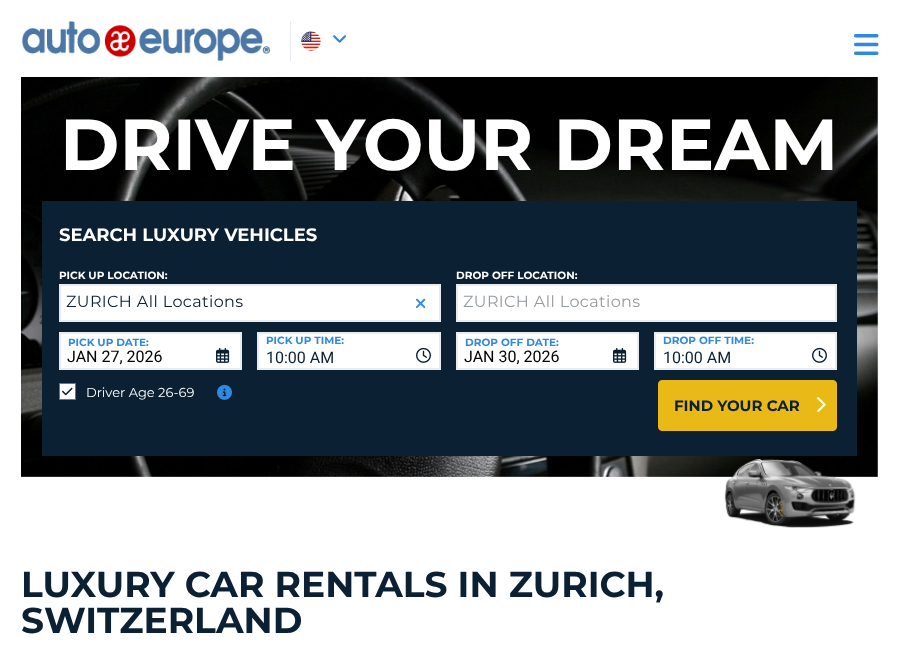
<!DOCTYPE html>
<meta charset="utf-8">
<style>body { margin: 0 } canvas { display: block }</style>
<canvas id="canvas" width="899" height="664"></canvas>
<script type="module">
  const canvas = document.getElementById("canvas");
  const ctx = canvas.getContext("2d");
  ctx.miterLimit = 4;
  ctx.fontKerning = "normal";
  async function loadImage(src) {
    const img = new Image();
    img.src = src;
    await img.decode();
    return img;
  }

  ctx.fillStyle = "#ffffff";
  ctx.fillRect(0, 0, 899, 664);
  ctx.fillStyle = "#e8ecf0";
  ctx.fillRect(290, 21, 1, 40);
  ctx.drawImage(await loadImage("img1.png"), 21, 21, 249, 40);
  ctx.drawImage(await loadImage("img2.png"), 301, 31, 20, 20);
  ctx.drawImage(await loadImage("img3.png"), 333, 35, 14, 8);
  ctx.drawImage(await loadImage("img4.png"), 854, 34, 25, 21);
  ctx.drawImage(await loadImage("img5.png"), 21, 77, 857, 400);
  ctx.font = "bold 72px Montserrat";
  ctx.fillStyle = "#ffffff";
  ctx.fillText("DRIVE YOUR DREAM", 60, 170);
  ctx.fillStyle = "#0b2033";
  ctx.fillRect(42, 201, 815, 255);
  ctx.font = "bold 18px Montserrat";
  ctx.fillStyle = "#ffffff";
  ctx.fillText("SEARCH LUXURY VEHICLES", 59, 241);
  ctx.font = "bold 10.5px Montserrat";
  ctx.fillText("PICK UP LOCATION:", 59, 279);
  ctx.beginPath();
  ctx.rect(60, 285, 380, 36);
  ctx.fill();
  ctx.strokeStyle = "#e8ecf0";
  ctx.lineWidth = 2;
  ctx.stroke();
  ctx.letterSpacing = "0.4px";
  ctx.font = "16px Montserrat";
  ctx.fillStyle = "#0b2033";
  ctx.fillText("ZURICH All Locations", 66, 307);
  ctx.drawImage(await loadImage("img6.png"), 416, 298, 10, 10);
  ctx.letterSpacing = "0px";
  ctx.font = "bold 10.5px Montserrat";
  ctx.fillStyle = "#ffffff";
  ctx.fillText("DROP OFF LOCATION:", 456, 279);
  ctx.beginPath();
  ctx.rect(457, 285, 379, 36);
  ctx.fill();
  ctx.stroke();
  ctx.letterSpacing = "0.4px";
  ctx.font = "16px Montserrat";
  ctx.fillStyle = "#969b9f";
  ctx.fillText("ZURICH All Locations", 463, 307);
  ctx.fillStyle = "#ffffff";
  ctx.beginPath();
  ctx.rect(60, 333, 181, 36);
  ctx.fill();
  ctx.stroke();
  ctx.letterSpacing = "0px";
  ctx.font = "bold 10.5px Montserrat";
  ctx.fillStyle = "#3089e0";
  ctx.fillText("PICK UP DATE:", 68, 346);
  ctx.font = "16px Roboto";
  ctx.fillStyle = "#000000";
  ctx.fillText("JAN 27, 2026", 67, 362);
  ctx.drawImage(await loadImage("img7.png"), 216, 347, 14, 16);
  ctx.fillStyle = "#ffffff";
  ctx.beginPath();
  ctx.rect(258, 333, 182, 36);
  ctx.fill();
  ctx.stroke();
  ctx.font = "bold 10.5px Montserrat";
  ctx.fillStyle = "#3089e0";
  ctx.fillText("PICK UP TIME:", 266, 344);
  ctx.font = "16px Roboto";
  ctx.fillStyle = "#0b2033";
  ctx.fillText("10:00 AM", 266, 363);
  ctx.drawImage(await loadImage("img8.png"), 416, 347, 15, 16);
  ctx.fillStyle = "#ffffff";
  ctx.beginPath();
  ctx.rect(457, 333, 181, 36);
  ctx.fill();
  ctx.stroke();
  ctx.font = "bold 10.5px Montserrat";
  ctx.fillStyle = "#3089e0";
  ctx.fillText("DROP OFF DATE:", 465, 346);
  ctx.font = "16px Roboto";
  ctx.fillStyle = "#000000";
  ctx.fillText("JAN 30, 2026", 464, 362);
  ctx.drawImage(await loadImage("img7.png"), 613, 347, 14, 16);
  ctx.fillStyle = "#ffffff";
  ctx.beginPath();
  ctx.rect(655, 333, 181, 36);
  ctx.fill();
  ctx.stroke();
  ctx.font = "bold 10.5px Montserrat";
  ctx.fillStyle = "#3089e0";
  ctx.fillText("DROP OFF TIME:", 663, 344);
  ctx.font = "16px Roboto";
  ctx.fillStyle = "#0b2033";
  ctx.fillText("10:00 AM", 663, 363);
  ctx.drawImage(await loadImage("img8.png"), 812, 347, 15, 16);
  ctx.fillStyle = "#ffffff";
  ctx.beginPath();
  ctx.rect(59.5, 383.5, 16, 16);
  ctx.fill();
  ctx.strokeStyle = "#6f7579";
  ctx.lineWidth = 1;
  ctx.stroke();
  ctx.drawImage(await loadImage("img9.png"), 62, 387, 11, 9);
  ctx.font = "13px Montserrat";
  ctx.fillText("Driver Age 26-69", 86, 397);
  ctx.drawImage(await loadImage("img10.png"), 217, 384, 15, 16);
  ctx.fillStyle = "#e8b917";
  ctx.beginPath();
  ctx.roundRect(658.5, 380.5, 178, 50, 3.5);
  ctx.fill();
  ctx.strokeStyle = "#e8b917";
  ctx.stroke();
  ctx.font = "bold 15px Montserrat";
  ctx.fillStyle = "#0b2033";
  ctx.fillText("FIND YOUR CAR", 674, 411);
  ctx.drawImage(await loadImage("img11.png"), 817, 397, 9, 15);
  ctx.drawImage(await loadImage("img12.png"), 724, 459, 132, 69);
  ctx.font = "bold 36px Montserrat";
  ctx.fillText("LUXURY CAR RENTALS IN ZURICH,", 21, 597);
  ctx.fillText("SWITZERLAND", 21, 633);
</script>
